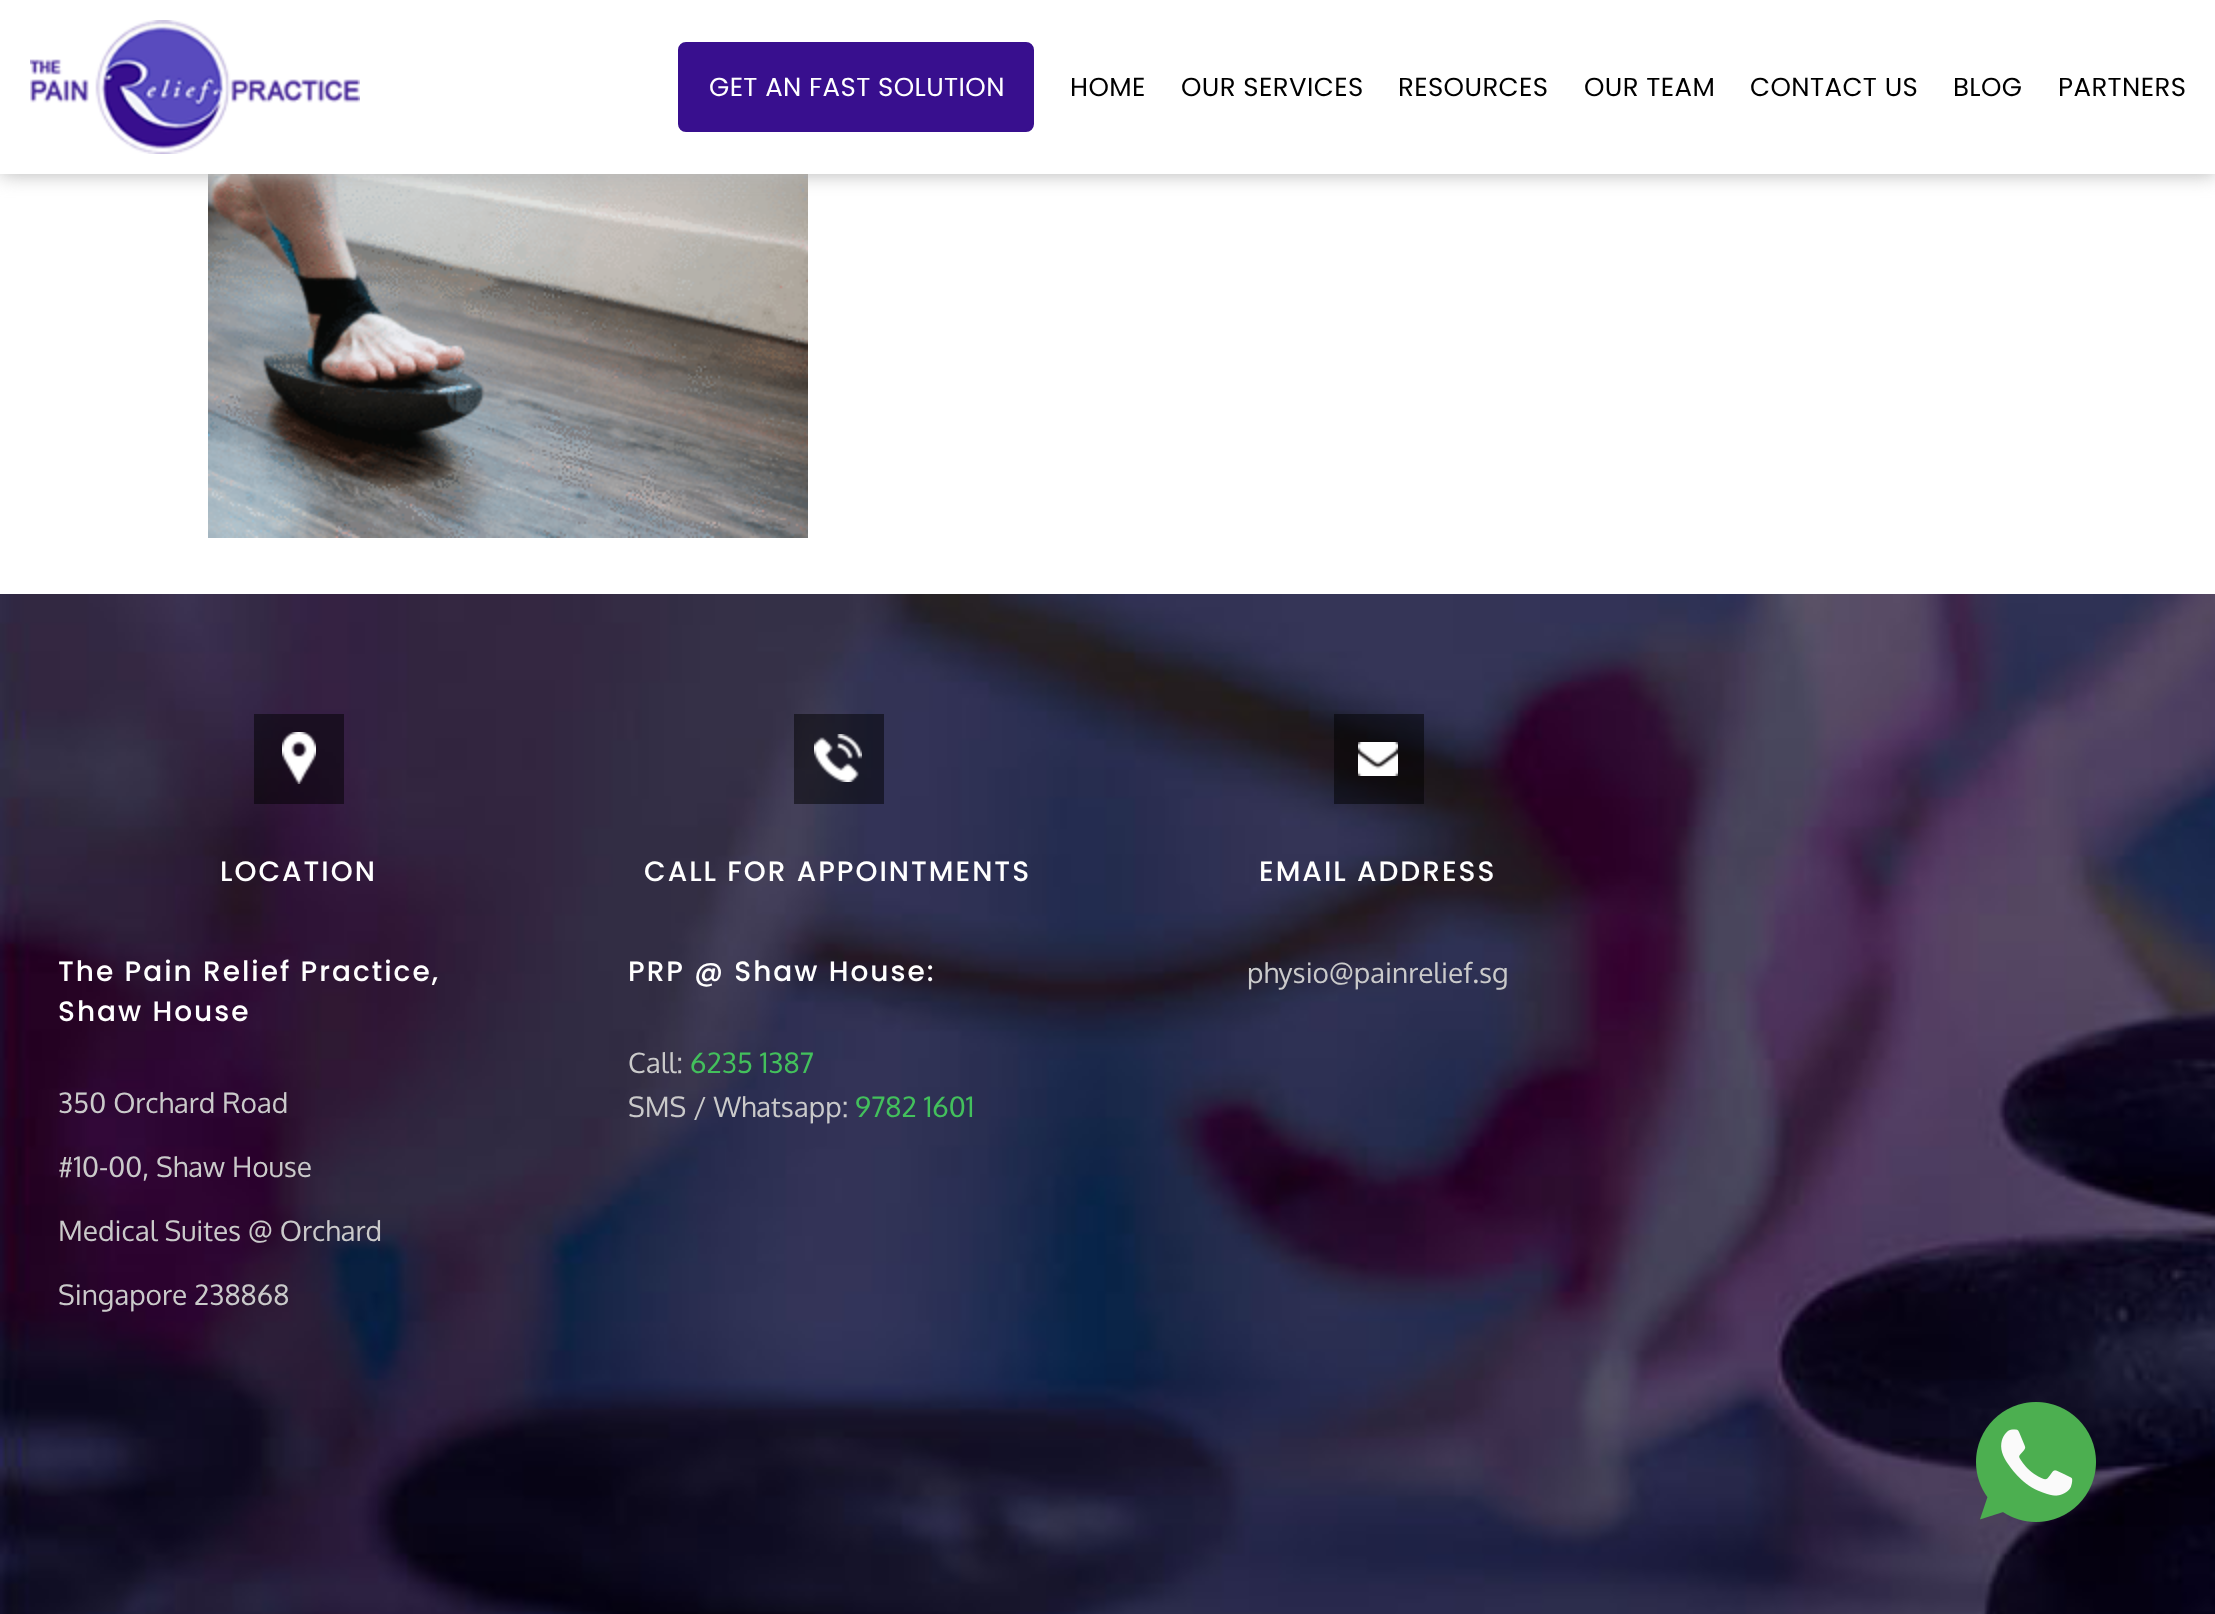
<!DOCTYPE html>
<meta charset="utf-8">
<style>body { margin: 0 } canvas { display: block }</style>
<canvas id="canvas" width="2215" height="1614"></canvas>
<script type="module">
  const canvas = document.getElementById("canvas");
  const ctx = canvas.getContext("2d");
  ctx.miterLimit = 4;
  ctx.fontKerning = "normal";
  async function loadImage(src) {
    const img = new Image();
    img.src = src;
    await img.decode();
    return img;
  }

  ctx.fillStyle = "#ffffff";
  ctx.fillRect(0, 0, 2215, 1614);
  ctx.drawImage(await loadImage("img2.png"), 208, 174, 600, 364);
  ctx.fillStyle = "#b4b4b4";
  ctx.filter = "blur(10px)";
  ctx.beginPath();
  ctx.rect(0, 0, 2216, 174);
  ctx.fill();
  ctx.filter = "none";
  ctx.fillStyle = "#ffffff";
  ctx.fillRect(0, 0, 2215, 174);
  ctx.drawImage(await loadImage("img1.png"), 30, 20, 330, 134);
  ctx.fillStyle = "#380f8e";
  ctx.beginPath();
  ctx.roundRect(679, 43, 354, 88, 7);
  ctx.fill();
  ctx.strokeStyle = "#380f8e";
  ctx.lineWidth = 2;
  ctx.stroke();
  ctx.letterSpacing = "0.4px";
  ctx.font = "26px Poppins";
  ctx.fillStyle = "#ffffff";
  ctx.fillText("GET AN FAST SOLUTION", 709, 96);
  ctx.fillStyle = "#000000";
  ctx.fillText("HOME", 1070, 96);
  ctx.fillText("OUR SERVICES", 1181, 96);
  ctx.fillText("RESOURCES", 1398, 96);
  ctx.fillText("OUR TEAM", 1584, 96);
  ctx.fillText("CONTACT US", 1750, 96);
  ctx.fillText("BLOG", 1953, 96);
  ctx.fillText("PARTNERS", 2058, 96);
  ctx.drawImage(await loadImage("img3.png"), 0, 594, 2215, 1020);
  ctx.fillStyle = "rgba(0, 0, 0, 0.5)";
  ctx.fillRect(254, 714, 90, 90);
  ctx.drawImage(await loadImage("img4.png"), 282, 732, 34, 52);
  ctx.letterSpacing = "2px";
  ctx.font = "500 28px Poppins";
  ctx.fillStyle = "#ffffff";
  ctx.fillText("LOCATION", 220, 881);
  ctx.fillText("The Pain Relief Practice,", 58, 981);
  ctx.fillText("Shaw House", 58, 1021);
  ctx.letterSpacing = "0px";
  ctx.font = "28px Oxygen";
  ctx.fillStyle = "#cacaca";
  ctx.fillText("350 Orchard Road", 58, 1113);
  ctx.fillText("#10-00, Shaw House", 58, 1177);
  ctx.fillText("Medical Suites @ Orchard", 58, 1241);
  ctx.fillText("Singapore 238868", 58, 1305);
  ctx.fillStyle = "rgba(0, 0, 0, 0.5)";
  ctx.fillRect(794, 714, 90, 90);
  ctx.drawImage(await loadImage("img5.png"), 814, 734, 48, 48);
  ctx.letterSpacing = "2px";
  ctx.font = "500 28px Poppins";
  ctx.fillStyle = "#ffffff";
  ctx.fillText("CALL FOR APPOINTMENTS", 644, 881);
  ctx.fillText("PRP @ Shaw House:", 628, 981);
  ctx.letterSpacing = "0px";
  ctx.font = "28px Oxygen";
  ctx.fillStyle = "#cacaca";
  ctx.fillText("Call:", 628, 1073);
  ctx.fillStyle = "#43c05c";
  ctx.fillText("6235 1387", 690, 1073);
  ctx.fillStyle = "#cacaca";
  ctx.fillText("SMS / Whatsapp:", 628, 1117);
  ctx.fillStyle = "#43c05c";
  ctx.fillText("9782 1601", 855, 1117);
  ctx.fillStyle = "rgba(0, 0, 0, 0.5)";
  ctx.fillRect(1334, 714, 90, 90);
  ctx.drawImage(await loadImage("img6.png"), 1358, 742, 40, 34);
  ctx.letterSpacing = "2px";
  ctx.font = "500 28px Poppins";
  ctx.fillStyle = "#ffffff";
  ctx.fillText("EMAIL ADDRESS", 1259, 881);
  ctx.letterSpacing = "0px";
  ctx.font = "28px Oxygen";
  ctx.fillStyle = "#cacaca";
  ctx.fillText("physio@painrelief.sg", 1247, 983);
  ctx.drawImage(await loadImage("img7.png"), 1976, 1402, 120, 120);
</script>
